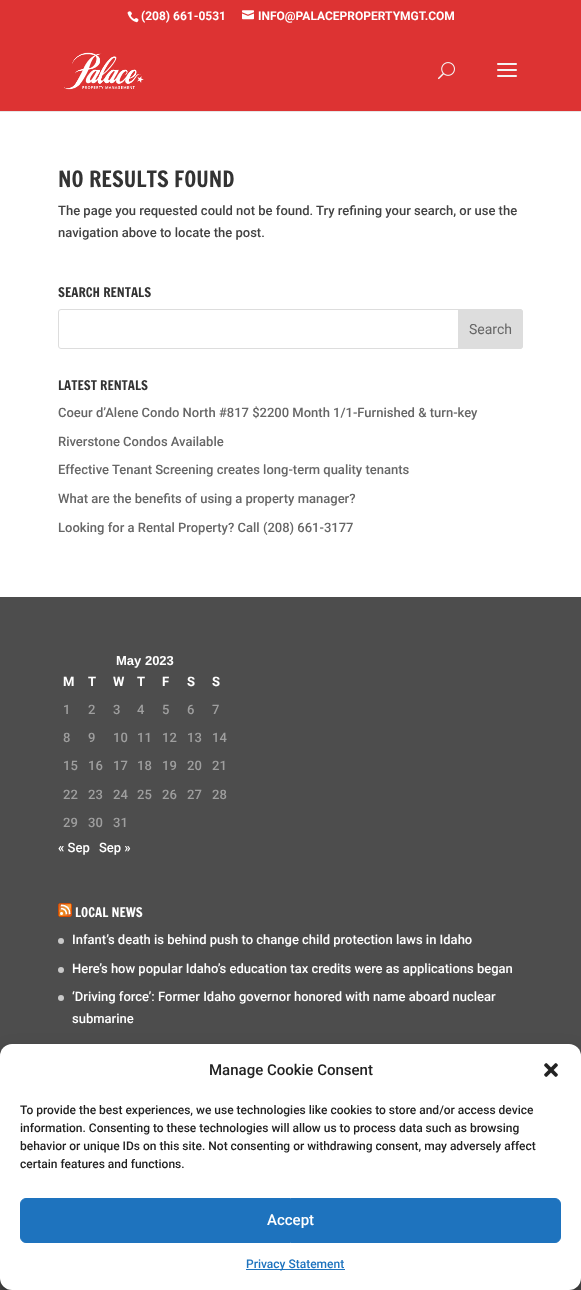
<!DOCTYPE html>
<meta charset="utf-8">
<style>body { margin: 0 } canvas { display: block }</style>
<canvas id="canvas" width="581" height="1290"></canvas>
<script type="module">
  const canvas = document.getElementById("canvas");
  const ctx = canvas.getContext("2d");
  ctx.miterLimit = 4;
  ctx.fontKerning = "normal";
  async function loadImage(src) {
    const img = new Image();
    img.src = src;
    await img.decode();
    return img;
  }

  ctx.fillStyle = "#ffffff";
  ctx.fillRect(0, 0, 581, 1290);
  ctx.fillStyle = "#e6e6e6";
  ctx.fillRect(0, 111, 581, 1);
  ctx.fillStyle = "#dd3333";
  ctx.fillRect(0, 0, 581, 111);
  ctx.drawImage(await loadImage("img1.png"), 64, 52, 80, 38);
  ctx.drawImage(await loadImage("img2.png"), 438, 62, 17, 18);
  ctx.drawImage(await loadImage("img3.png"), 497, 63, 20, 14);
  ctx.drawImage(await loadImage("img4.png"), 127, 11, 12, 12);
  ctx.font = "bold 12px Roboto";
  ctx.fillStyle = "#ffffff";
  ctx.fillText("(208) 661-0531", 141, 20);
  ctx.drawImage(await loadImage("img5.png"), 242, 10, 12, 10);
  ctx.fillText("INFO@PALACEPROPERTYMGT.COM", 258, 20);
  ctx.font = "22px Francois One";
  ctx.fillStyle = "#333333";
  ctx.fillText("NO RESULTS FOUND", 58, 187);
  ctx.font = "500 13px Roboto";
  ctx.fillStyle = "#424242";
  ctx.fillText("The page you requested could not be found. Try refining your search, or use the", 58, 215);
  ctx.fillText("navigation above to locate the post.", 58, 237);
  ctx.font = "13px Francois One";
  ctx.fillStyle = "#333333";
  ctx.fillText("SEARCH RENTALS", 58, 297);
  ctx.beginPath();
  ctx.roundRect(58.5, 309.5, 464, 39, 2.5);
  ctx.strokeStyle = "#dddddd";
  ctx.stroke();
  ctx.fillStyle = "#dddddd";
  ctx.beginPath();
  ctx.roundRect(458.5, 309.5, 64, 39, [0, 2.5, 2.5, 0]);
  ctx.fill();
  ctx.stroke();
  ctx.font = "14px Roboto";
  ctx.fillStyle = "#666666";
  ctx.fillText("Search", 469, 334);
  ctx.font = "13px Francois One";
  ctx.fillStyle = "#333333";
  ctx.fillText("LATEST RENTALS", 58, 390);
  ctx.font = "500 13px Roboto";
  ctx.fillStyle = "#666666";
  ctx.fillText("Coeur d’Alene Condo North #817 $2200 Month 1/1-Furnished & turn-key", 58, 417);
  ctx.fillText("Riverstone Condos Available", 58, 446);
  ctx.fillText("Effective Tenant Screening creates long-term quality tenants", 58, 474);
  ctx.fillText("What are the benefits of using a property manager?", 58, 503);
  ctx.fillText("Looking for a Rental Property? Call (208) 661-3177", 58, 532);
  ctx.fillStyle = "#4d4d4d";
  ctx.fillRect(0, 597, 581, 693);
  ctx.font = "bold 13px Liberation Sans";
  ctx.fillStyle = "#ffffff";
  ctx.fillText("May 2023", 116, 665);
  ctx.font = "bold 13px Roboto";
  ctx.fillText("M", 63, 686);
  ctx.fillText("T", 88, 686);
  ctx.fillText("W", 113, 686);
  ctx.fillText("T", 137, 686);
  ctx.fillText("F", 162, 686);
  ctx.fillText("S", 187, 686);
  ctx.fillText("S", 212, 686);
  ctx.font = "500 13px Roboto";
  ctx.fillStyle = "#9f9f9f";
  ctx.fillText("1", 63, 714);
  ctx.fillText("2", 88, 714);
  ctx.fillText("3", 113, 714);
  ctx.fillText("4", 137, 714);
  ctx.fillText("5", 162, 714);
  ctx.fillText("6", 187, 714);
  ctx.fillText("7", 212, 714);
  ctx.fillText("8", 63, 742);
  ctx.fillText("9", 88, 742);
  ctx.fillText("10", 113, 742);
  ctx.fillText("11", 137, 742);
  ctx.fillText("12", 162, 742);
  ctx.fillText("13", 187, 742);
  ctx.fillText("14", 212, 742);
  ctx.fillText("15", 63, 770);
  ctx.fillText("16", 88, 770);
  ctx.fillText("17", 113, 770);
  ctx.fillText("18", 137, 770);
  ctx.fillText("19", 162, 770);
  ctx.fillText("20", 187, 770);
  ctx.fillText("21", 212, 770);
  ctx.fillText("22", 63, 799);
  ctx.fillText("23", 88, 799);
  ctx.fillText("24", 113, 799);
  ctx.fillText("25", 137, 799);
  ctx.fillText("26", 162, 799);
  ctx.fillText("27", 187, 799);
  ctx.fillText("28", 212, 799);
  ctx.fillText("29", 63, 827);
  ctx.fillText("30", 88, 827);
  ctx.fillText("31", 113, 827);
  ctx.fillStyle = "#ffffff";
  ctx.fillText("« Sep", 58, 852);
  ctx.fillText("Sep »", 99, 852);
  ctx.drawImage(await loadImage("img6.png"), 58, 903, 14, 14);
  ctx.font = "13px Francois One";
  ctx.fillText("LOCAL NEWS", 75, 917);
  ctx.fillStyle = "#c9c9c9";
  ctx.beginPath();
  ctx.arc(61, 941, 3, 0, Math.PI * 2);
  ctx.fill();
  ctx.font = "500 13px Roboto";
  ctx.fillStyle = "#ffffff";
  ctx.fillText("Infant’s death is behind push to change child protection laws in Idaho", 72, 944);
  ctx.fillStyle = "#c9c9c9";
  ctx.beginPath();
  ctx.arc(61, 970, 3, 0, Math.PI * 2);
  ctx.fill();
  ctx.fillStyle = "#ffffff";
  ctx.fillText("Here’s how popular Idaho’s education tax credits were as applications began", 72, 973);
  ctx.fillStyle = "#c9c9c9";
  ctx.beginPath();
  ctx.arc(61, 998, 3, 0, Math.PI * 2);
  ctx.fill();
  ctx.fillStyle = "#ffffff";
  ctx.fillText("‘Driving force’: Former Idaho governor honored with name aboard nuclear", 72, 1001);
  ctx.fillText("submarine", 72, 1023);
  ctx.fillStyle = "rgba(0, 0, 0, 0.23)";
  ctx.filter = "blur(3px)";
  ctx.beginPath();
  ctx.roundRect(0, 1050, 581, 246, 12);
  ctx.fill();
  ctx.filter = "none";
  ctx.fillStyle = "rgba(0, 0, 0, 0.19)";
  ctx.filter = "blur(10px)";
  ctx.beginPath();
  ctx.roundRect(0, 1054, 581, 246, 12);
  ctx.fill();
  ctx.filter = "none";
  ctx.fillStyle = "#ffffff";
  ctx.beginPath();
  ctx.roundRect(0, 1044, 581, 246, 12);
  ctx.fill();
  ctx.font = "500 15px Roboto";
  ctx.fillStyle = "#222222";
  ctx.fillText("Manage Cookie Consent", 209, 1075);
  ctx.drawImage(await loadImage("img7.png"), 544, 1063, 14, 14);
  ctx.font = "500 12px Roboto";
  ctx.fillText("To provide the best experiences, we use technologies like cookies to store and/or access device", 20, 1114);
  ctx.fillText("information. Consenting to these technologies will allow us to process data such as browsing", 20, 1132);
  ctx.fillText("behavior or unique IDs on this site. Not consenting or withdrawing consent, may adversely affect", 20, 1150);
  ctx.fillText("certain features and functions.", 20, 1168);
  ctx.fillStyle = "#1e73be";
  ctx.beginPath();
  ctx.roundRect(20.5, 1198.5, 540, 44, 5.5);
  ctx.fill();
  ctx.strokeStyle = "#1e73be";
  ctx.stroke();
  ctx.font = "500 15px Roboto";
  ctx.fillStyle = "#ffffff";
  ctx.fillText("Accept", 267, 1225);
  ctx.fillStyle = "#1e73be";
  ctx.fillRect(246, 1269, 99, 1);
  ctx.font = "500 12px Roboto";
  ctx.fillText("Privacy Statement", 246, 1268);
</script>
